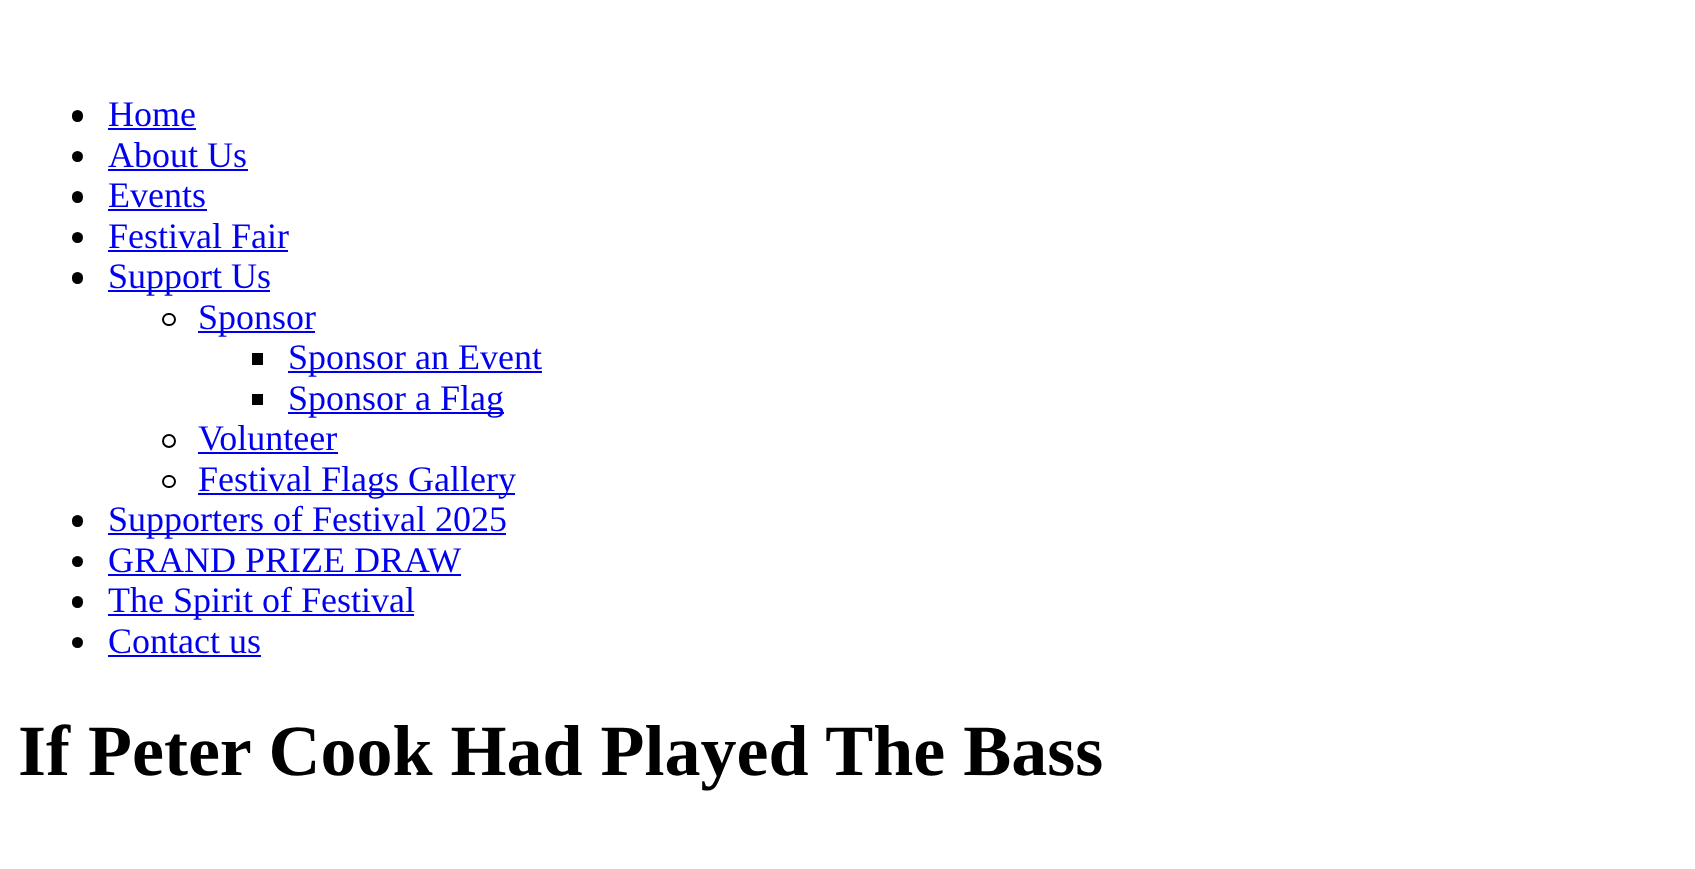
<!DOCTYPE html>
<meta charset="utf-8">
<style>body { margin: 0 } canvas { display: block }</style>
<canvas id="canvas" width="1695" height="869"></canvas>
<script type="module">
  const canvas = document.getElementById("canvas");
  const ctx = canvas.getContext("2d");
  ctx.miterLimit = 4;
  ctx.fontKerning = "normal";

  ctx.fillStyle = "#ffffff";
  ctx.fillRect(0, 0, 1695, 869);
  ctx.fillStyle = "#000000";
  ctx.beginPath();
  ctx.roundRect(72, 110, 11, 12, 5.5);
  ctx.fill();
  ctx.font = "36px Liberation Serif";
  ctx.fillStyle = "#0000ee";
  ctx.fillText("Home", 108, 126);
  ctx.fillRect(108, 128, 88, 2);
  ctx.fillStyle = "#000000";
  ctx.beginPath();
  ctx.arc(77.5, 156.5, 5.5, 0, Math.PI * 2);
  ctx.fill();
  ctx.fillStyle = "#0000ee";
  ctx.fillText("About Us", 108, 167);
  ctx.fillRect(108, 169, 140, 2);
  ctx.fillStyle = "#000000";
  ctx.beginPath();
  ctx.roundRect(72, 191, 11, 12, 5.5);
  ctx.fill();
  ctx.fillStyle = "#0000ee";
  ctx.fillText("Events", 108, 207);
  ctx.fillRect(108, 209, 99, 2);
  ctx.fillStyle = "#000000";
  ctx.beginPath();
  ctx.arc(77.5, 237.5, 5.5, 0, Math.PI * 2);
  ctx.fill();
  ctx.fillStyle = "#0000ee";
  ctx.fillText("Festival Fair", 108, 248);
  ctx.fillRect(108, 250, 180, 2);
  ctx.fillStyle = "#000000";
  ctx.beginPath();
  ctx.roundRect(72, 272, 11, 12, 5.5);
  ctx.fill();
  ctx.fillStyle = "#0000ee";
  ctx.fillRect(108, 290, 162, 2);
  ctx.fillText("Support Us", 108, 288);
  ctx.beginPath();
  ctx.roundRect(163, 314, 12, 11, 5.5);
  ctx.strokeStyle = "#000000";
  ctx.lineWidth = 2;
  ctx.stroke();
  ctx.fillRect(198, 331, 117, 2);
  ctx.fillText("Sponsor", 198, 329);
  ctx.fillStyle = "#000000";
  ctx.fillRect(252, 353, 11, 12);
  ctx.fillStyle = "#0000ee";
  ctx.fillRect(288, 371, 254, 2);
  ctx.fillText("Sponsor an Event", 288, 369);
  ctx.fillStyle = "#000000";
  ctx.fillRect(252, 394, 11, 11);
  ctx.fillStyle = "#0000ee";
  ctx.fillRect(288, 412, 216, 2);
  ctx.fillText("Sponsor a Flag", 288, 410);
  ctx.beginPath();
  ctx.arc(169, 441, 6, 0, Math.PI * 2);
  ctx.stroke();
  ctx.fillText("Volunteer", 198, 450);
  ctx.fillRect(198, 452, 140, 2);
  ctx.beginPath();
  ctx.roundRect(163, 476, 12, 11, 5.5);
  ctx.stroke();
  ctx.fillRect(198, 493, 317, 2);
  ctx.fillText("Festival Flags Gallery", 198, 491);
  ctx.fillStyle = "#000000";
  ctx.beginPath();
  ctx.roundRect(72, 515, 11, 12, 5.5);
  ctx.fill();
  ctx.fillStyle = "#0000ee";
  ctx.fillRect(108, 533, 398, 2);
  ctx.fillText("Supporters of Festival 2025", 108, 531);
  ctx.fillStyle = "#000000";
  ctx.beginPath();
  ctx.arc(77.5, 561.5, 5.5, 0, Math.PI * 2);
  ctx.fill();
  ctx.fillStyle = "#0000ee";
  ctx.fillText("GRAND PRIZE DRAW", 108, 572);
  ctx.fillRect(108, 574, 353, 2);
  ctx.fillStyle = "#000000";
  ctx.beginPath();
  ctx.roundRect(72, 596, 11, 12, 5.5);
  ctx.fill();
  ctx.fillStyle = "#0000ee";
  ctx.fillRect(108, 614, 306, 2);
  ctx.fillText("The Spirit of Festival", 108, 612);
  ctx.fillStyle = "#000000";
  ctx.beginPath();
  ctx.arc(77.5, 642.5, 5.5, 0, Math.PI * 2);
  ctx.fill();
  ctx.fillStyle = "#0000ee";
  ctx.fillText("Contact us", 108, 653);
  ctx.fillRect(108, 655, 153, 2);
  ctx.font = "bold 72px Liberation Serif";
  ctx.fillStyle = "#000000";
  ctx.fillText("If Peter Cook Had Played The Bass", 18, 775);
</script>
